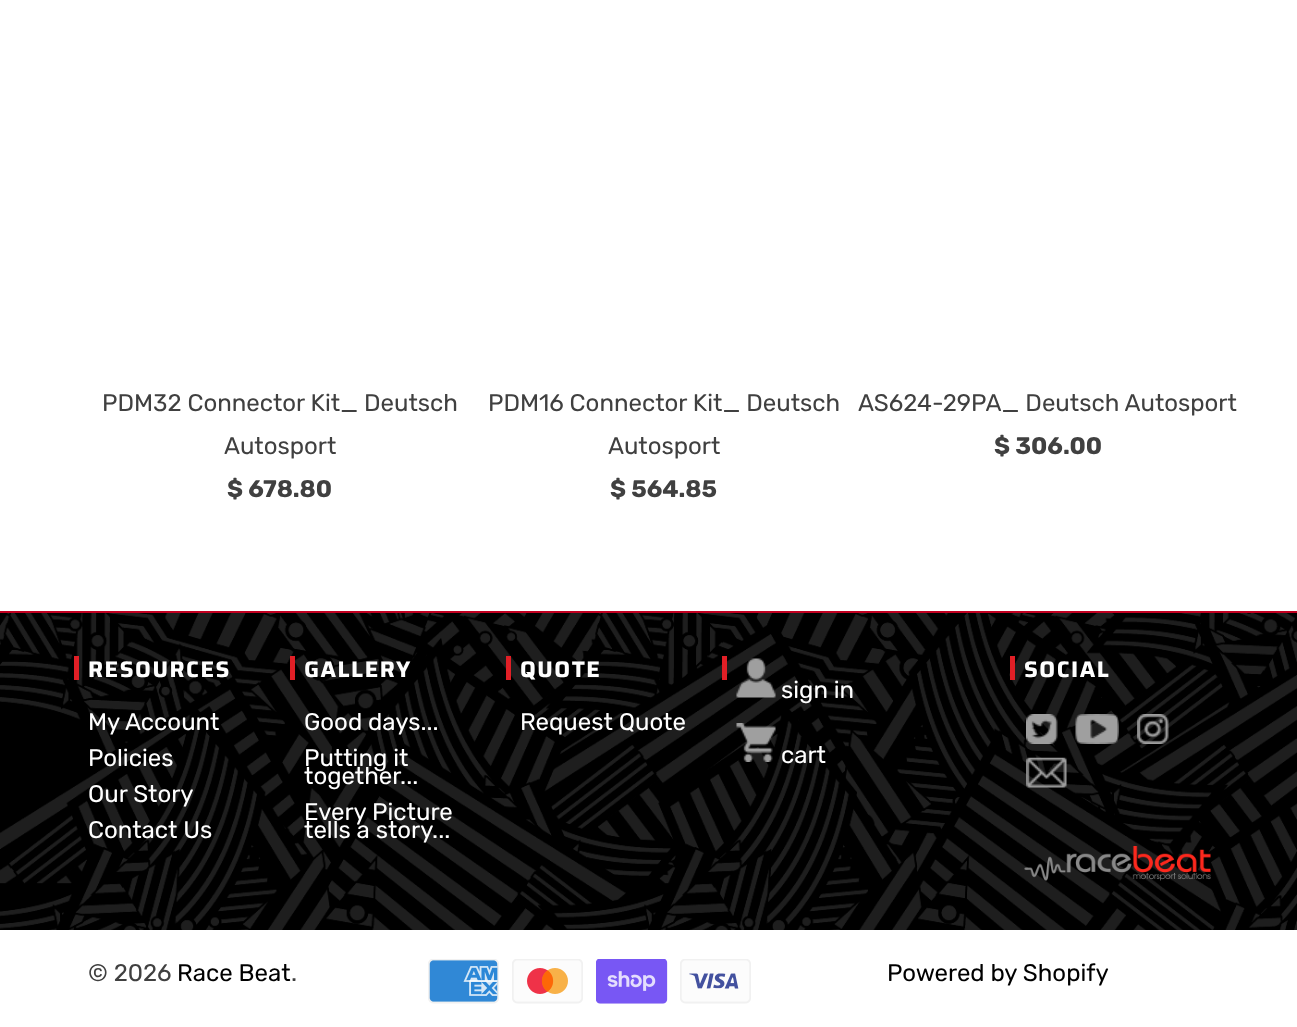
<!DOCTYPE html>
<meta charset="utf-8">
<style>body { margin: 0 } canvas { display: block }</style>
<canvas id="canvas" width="1297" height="1027"></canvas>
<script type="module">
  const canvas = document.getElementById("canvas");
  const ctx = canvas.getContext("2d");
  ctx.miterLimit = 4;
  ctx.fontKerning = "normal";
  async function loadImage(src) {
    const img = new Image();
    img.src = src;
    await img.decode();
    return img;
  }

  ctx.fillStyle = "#ffffff";
  ctx.fillRect(0, 0, 1297, 1027);
  ctx.font = "24px Rubik";
  ctx.fillStyle = "#404040";
  ctx.fillText("PDM32 Connector Kit_ Deutsch", 102, 411);
  ctx.fillText("Autosport", 224, 454);
  ctx.font = "bold 24px Rubik";
  ctx.fillText("$ 678.80", 227, 497);
  ctx.font = "24px Rubik";
  ctx.fillText("PDM16 Connector Kit_ Deutsch", 488, 411);
  ctx.fillText("Autosport", 608, 454);
  ctx.font = "bold 24px Rubik";
  ctx.fillText("$ 564.85", 610, 497);
  ctx.font = "24px Rubik";
  ctx.fillText("AS624-29PA_ Deutsch Autosport", 858, 411);
  ctx.font = "bold 24px Rubik";
  ctx.fillText("$ 306.00", 994, 454);
  ctx.fillStyle = "#000000";
  ctx.fillRect(0, 709, 669, 196);
  ctx.drawImage(await loadImage("img1.png"), 0, 613, 1297, 317);
  ctx.fillStyle = "#c10020";
  ctx.fillRect(0, 611, 1297, 2);
  ctx.fillStyle = "#e11f26";
  ctx.fillRect(74, 656, 5, 24);
  ctx.letterSpacing = "1.5px";
  ctx.font = "bold 22.5px Saira";
  ctx.fillStyle = "#ffffff";
  ctx.fillText("RESOURCES", 88, 677);
  ctx.letterSpacing = "0px";
  ctx.font = "24px Rubik";
  ctx.fillText("My Account", 88, 730);
  ctx.fillText("Policies", 88, 766);
  ctx.fillText("Our Story", 88, 802);
  ctx.fillText("Contact Us", 88, 838);
  ctx.fillStyle = "#e11f26";
  ctx.fillRect(290, 656, 5, 24);
  ctx.letterSpacing = "1.5px";
  ctx.font = "bold 22.5px Saira";
  ctx.fillStyle = "#ffffff";
  ctx.fillText("GALLERY", 304, 677);
  ctx.letterSpacing = "0px";
  ctx.font = "24px Rubik";
  ctx.fillText("Good days...", 304, 730);
  ctx.fillText("Putting it", 304, 766);
  ctx.fillText("together...", 304, 784);
  ctx.fillText("Every Picture", 304, 820);
  ctx.fillText("tells a story...", 304, 838);
  ctx.fillStyle = "#e11f26";
  ctx.fillRect(506, 656, 5, 24);
  ctx.letterSpacing = "1.5px";
  ctx.font = "bold 22.5px Saira";
  ctx.fillStyle = "#ffffff";
  ctx.fillText("QUOTE", 520, 677);
  ctx.letterSpacing = "0px";
  ctx.font = "24px Rubik";
  ctx.fillText("Request Quote", 520, 730);
  ctx.fillStyle = "#e11f26";
  ctx.fillRect(1010, 656, 5, 24);
  ctx.letterSpacing = "1.5px";
  ctx.font = "bold 22.5px Saira";
  ctx.fillStyle = "#ffffff";
  ctx.fillText("SOCIAL", 1024, 677);
  ctx.drawImage(await loadImage("img2.png"), 1026, 714, 32, 30);
  ctx.drawImage(await loadImage("img3.png"), 1075, 714, 44, 30);
  ctx.drawImage(await loadImage("img4.png"), 1137, 714, 32, 30);
  ctx.drawImage(await loadImage("img5.png"), 1026, 757, 41, 31);
  ctx.drawImage(await loadImage("img6.png"), 1024, 846, 187, 35);
  ctx.fillStyle = "#e11f26";
  ctx.fillRect(722, 656, 5, 24);
  ctx.drawImage(await loadImage("img7.png"), 736, 658, 40, 40);
  ctx.letterSpacing = "0px";
  ctx.font = "24px Rubik";
  ctx.fillStyle = "#ffffff";
  ctx.fillText("sign in", 781, 698);
  ctx.drawImage(await loadImage("img8.png"), 736, 723, 40, 39);
  ctx.fillText("cart", 781, 763);
  ctx.fillStyle = "#404040";
  ctx.fillText("© 2026", 88, 981);
  ctx.fillStyle = "#000000";
  ctx.fillText("Race Beat", 177, 981);
  ctx.fillStyle = "#404040";
  ctx.fillText(".", 291, 981);
  ctx.drawImage(await loadImage("img9.png"), 428, 959, 71, 45);
  ctx.drawImage(await loadImage("img10.png"), 512, 959, 71, 45);
  ctx.drawImage(await loadImage("img11.png"), 596, 959, 72, 45);
  ctx.drawImage(await loadImage("img12.png"), 680, 959, 71, 45);
  ctx.fillStyle = "#000000";
  ctx.fillText("Powered by Shopify", 887, 981);
</script>
